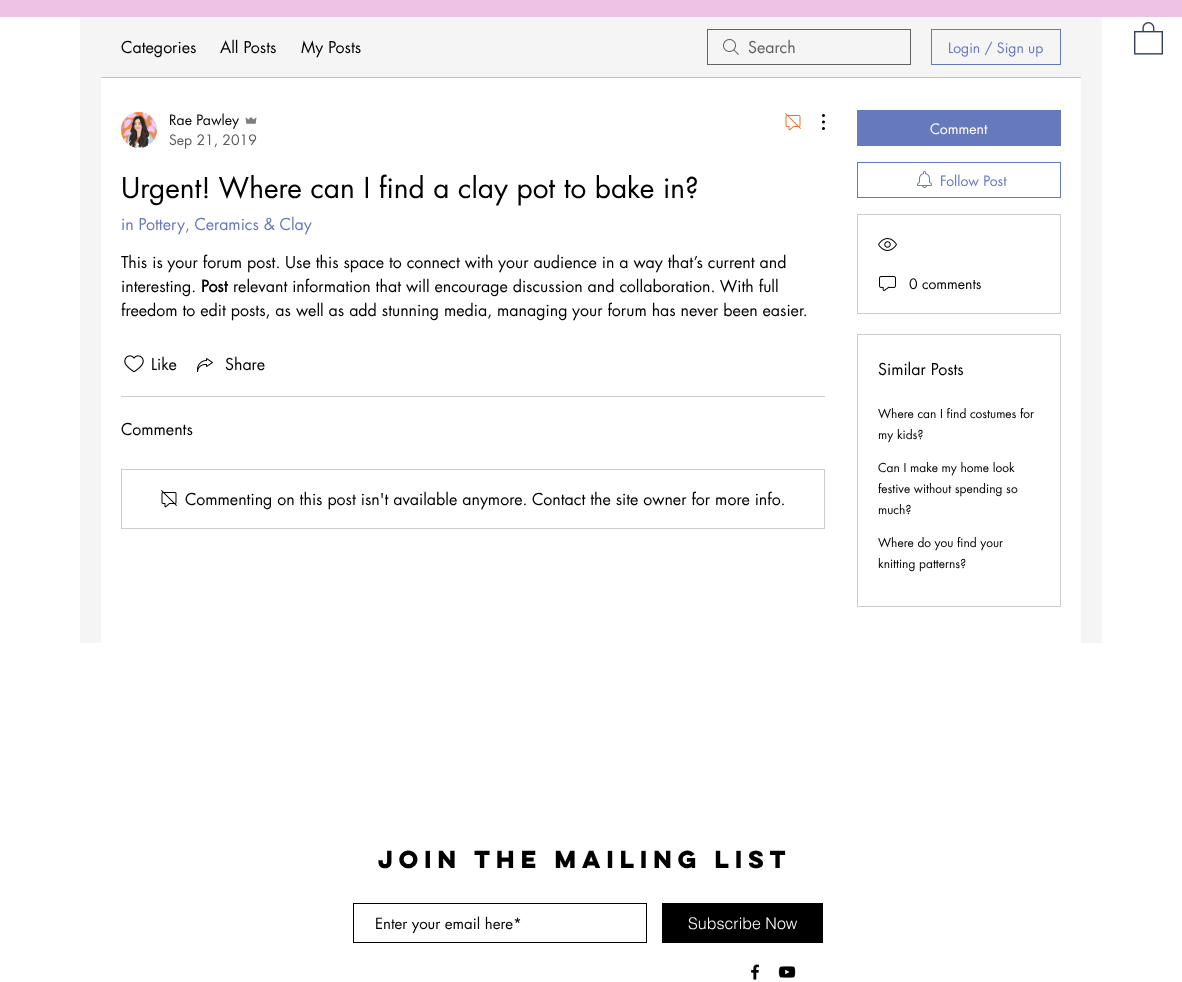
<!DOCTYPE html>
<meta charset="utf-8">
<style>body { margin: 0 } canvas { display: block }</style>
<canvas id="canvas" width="1182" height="982"></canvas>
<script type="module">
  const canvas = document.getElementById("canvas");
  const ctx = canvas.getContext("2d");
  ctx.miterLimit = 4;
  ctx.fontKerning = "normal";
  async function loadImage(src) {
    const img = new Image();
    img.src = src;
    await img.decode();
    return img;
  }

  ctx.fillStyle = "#ffffff";
  ctx.fillRect(0, 0, 1182, 982);
  ctx.fillStyle = "#edc2e4";
  ctx.fillRect(0, 0, 1182, 17);
  ctx.fillStyle = "#f5f5f5";
  ctx.fillRect(80, 17, 1022, 626);
  ctx.fillStyle = "#c4c4c4";
  ctx.fillRect(101, 77, 980, 1);
  ctx.font = "16px futura";
  ctx.fillStyle = "#000000";
  ctx.fillText("Categories", 121, 53);
  ctx.fillText("All Posts", 220, 53);
  ctx.fillText("My Posts", 301, 53);
  ctx.drawImage(await loadImage("img1.png"), 723, 39, 16, 16);
  ctx.strokeStyle = "#626262";
  ctx.strokeRect(707.5, 29.5, 203, 35);
  ctx.fillStyle = "#626262";
  ctx.fillText("Search", 748, 53);
  ctx.strokeStyle = "#6779bd";
  ctx.strokeRect(931.5, 29.5, 129, 35);
  ctx.font = "14px futura";
  ctx.fillStyle = "#6779bd";
  ctx.fillText("Login / Sign up", 948, 53);
  ctx.fillStyle = "#ffffff";
  ctx.fillRect(101, 78, 980, 565);
  ctx.drawImage(await loadImage("img2.png"), 121, 112, 36, 36);
  ctx.fillStyle = "#000000";
  ctx.fillText("Rae Pawley", 169, 125);
  ctx.drawImage(await loadImage("img3.png"), 245, 117, 12, 7);
  ctx.fillStyle = "#5c5c5c";
  ctx.fillText("Sep 21, 2019", 169, 145);
  ctx.drawImage(await loadImage("img4.png"), 785, 113, 16, 18);
  ctx.drawImage(await loadImage("img5.png"), 822, 114, 3, 16);
  ctx.font = "28px futura";
  ctx.fillStyle = "#000000";
  ctx.fillText("Urgent! Where can I find a clay pot to bake in?", 121, 198);
  ctx.font = "16px futura";
  ctx.fillStyle = "#6779bd";
  ctx.fillText("in Pottery, Ceramics & Clay", 121, 230);
  ctx.fillStyle = "#000000";
  ctx.fillText("This is your forum post. Use this space to connect with your audience in a way that’s current and", 121, 268);
  ctx.fillText("interesting.", 121, 292);
  ctx.font = "bold 16px futura";
  ctx.fillText("Post", 201, 292);
  ctx.font = "16px futura";
  ctx.fillText("relevant information that will encourage discussion and collaboration. With full", 233, 292);
  ctx.fillText("freedom to edit posts, as well as add stunning media, managing your forum has never been easier.", 121, 316);
  ctx.drawImage(await loadImage("img6.png"), 124, 355, 20, 18);
  ctx.fillText("Like", 151, 370);
  ctx.drawImage(await loadImage("img7.png"), 197, 358, 16, 14);
  ctx.fillText("Share", 225, 370);
  ctx.fillStyle = "#cccccc";
  ctx.fillRect(121, 396, 704, 1);
  ctx.fillStyle = "#000000";
  ctx.fillText("Comments", 121, 435);
  ctx.strokeStyle = "#cccccc";
  ctx.strokeRect(121.5, 469.5, 703, 59);
  ctx.drawImage(await loadImage("img8.png"), 161, 490, 16, 18);
  ctx.fillText("Commenting on this post isn't available anymore. Contact the site owner for more info.", 185, 505);
  ctx.fillStyle = "#6779bd";
  ctx.fillRect(857, 110, 204, 36);
  ctx.font = "14px futura";
  ctx.fillStyle = "#ffffff";
  ctx.fillText("Comment", 930, 134);
  ctx.strokeStyle = "#6779bd";
  ctx.strokeRect(857.5, 162.5, 203, 35);
  ctx.drawImage(await loadImage("img9.png"), 917, 171, 15, 17);
  ctx.fillStyle = "#6779bd";
  ctx.fillText("Follow Post", 940, 186);
  ctx.strokeStyle = "#cccccc";
  ctx.strokeRect(857.5, 214.5, 203, 99);
  ctx.drawImage(await loadImage("img10.png"), 878, 238, 19, 13);
  ctx.drawImage(await loadImage("img11.png"), 879, 276, 17, 15);
  ctx.fillStyle = "#000000";
  ctx.fillText("0 comments", 909, 289);
  ctx.strokeRect(857.5, 334.5, 203, 272);
  ctx.font = "16px futura";
  ctx.fillText("Similar Posts", 878, 375);
  ctx.font = "12px futura";
  ctx.fillText("Where can I find costumes for", 878, 418);
  ctx.fillText("my kids?", 878, 439);
  ctx.fillText("Can I make my home look", 878, 472);
  ctx.fillText("festive without spending so", 878, 493);
  ctx.fillText("much?", 878, 514);
  ctx.fillText("Where do you find your", 878, 547);
  ctx.fillText("knitting patterns?", 878, 568);
  ctx.drawImage(await loadImage("img12.png"), 1134, 22, 29, 33);
  ctx.letterSpacing = "1.1px";
  ctx.font = "bold 22px 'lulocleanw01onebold'";
  ctx.fillText("Join the mailing list", 378, 868);
  ctx.strokeStyle = "#000000";
  ctx.strokeRect(353.5, 903.5, 293, 39);
  ctx.letterSpacing = "0px";
  ctx.font = "15px futura";
  ctx.fillText("Enter your email here*", 375, 929);
  ctx.fillRect(662, 903, 161, 40);
  ctx.font = "300 16px helvetica";
  ctx.fillStyle = "#ffffff";
  ctx.fillText("Subscribe Now", 688, 929);
  ctx.drawImage(await loadImage("img13.png"), 751, 964, 9, 16);
  ctx.drawImage(await loadImage("img14.png"), 778, 966, 18, 12);
</script>
